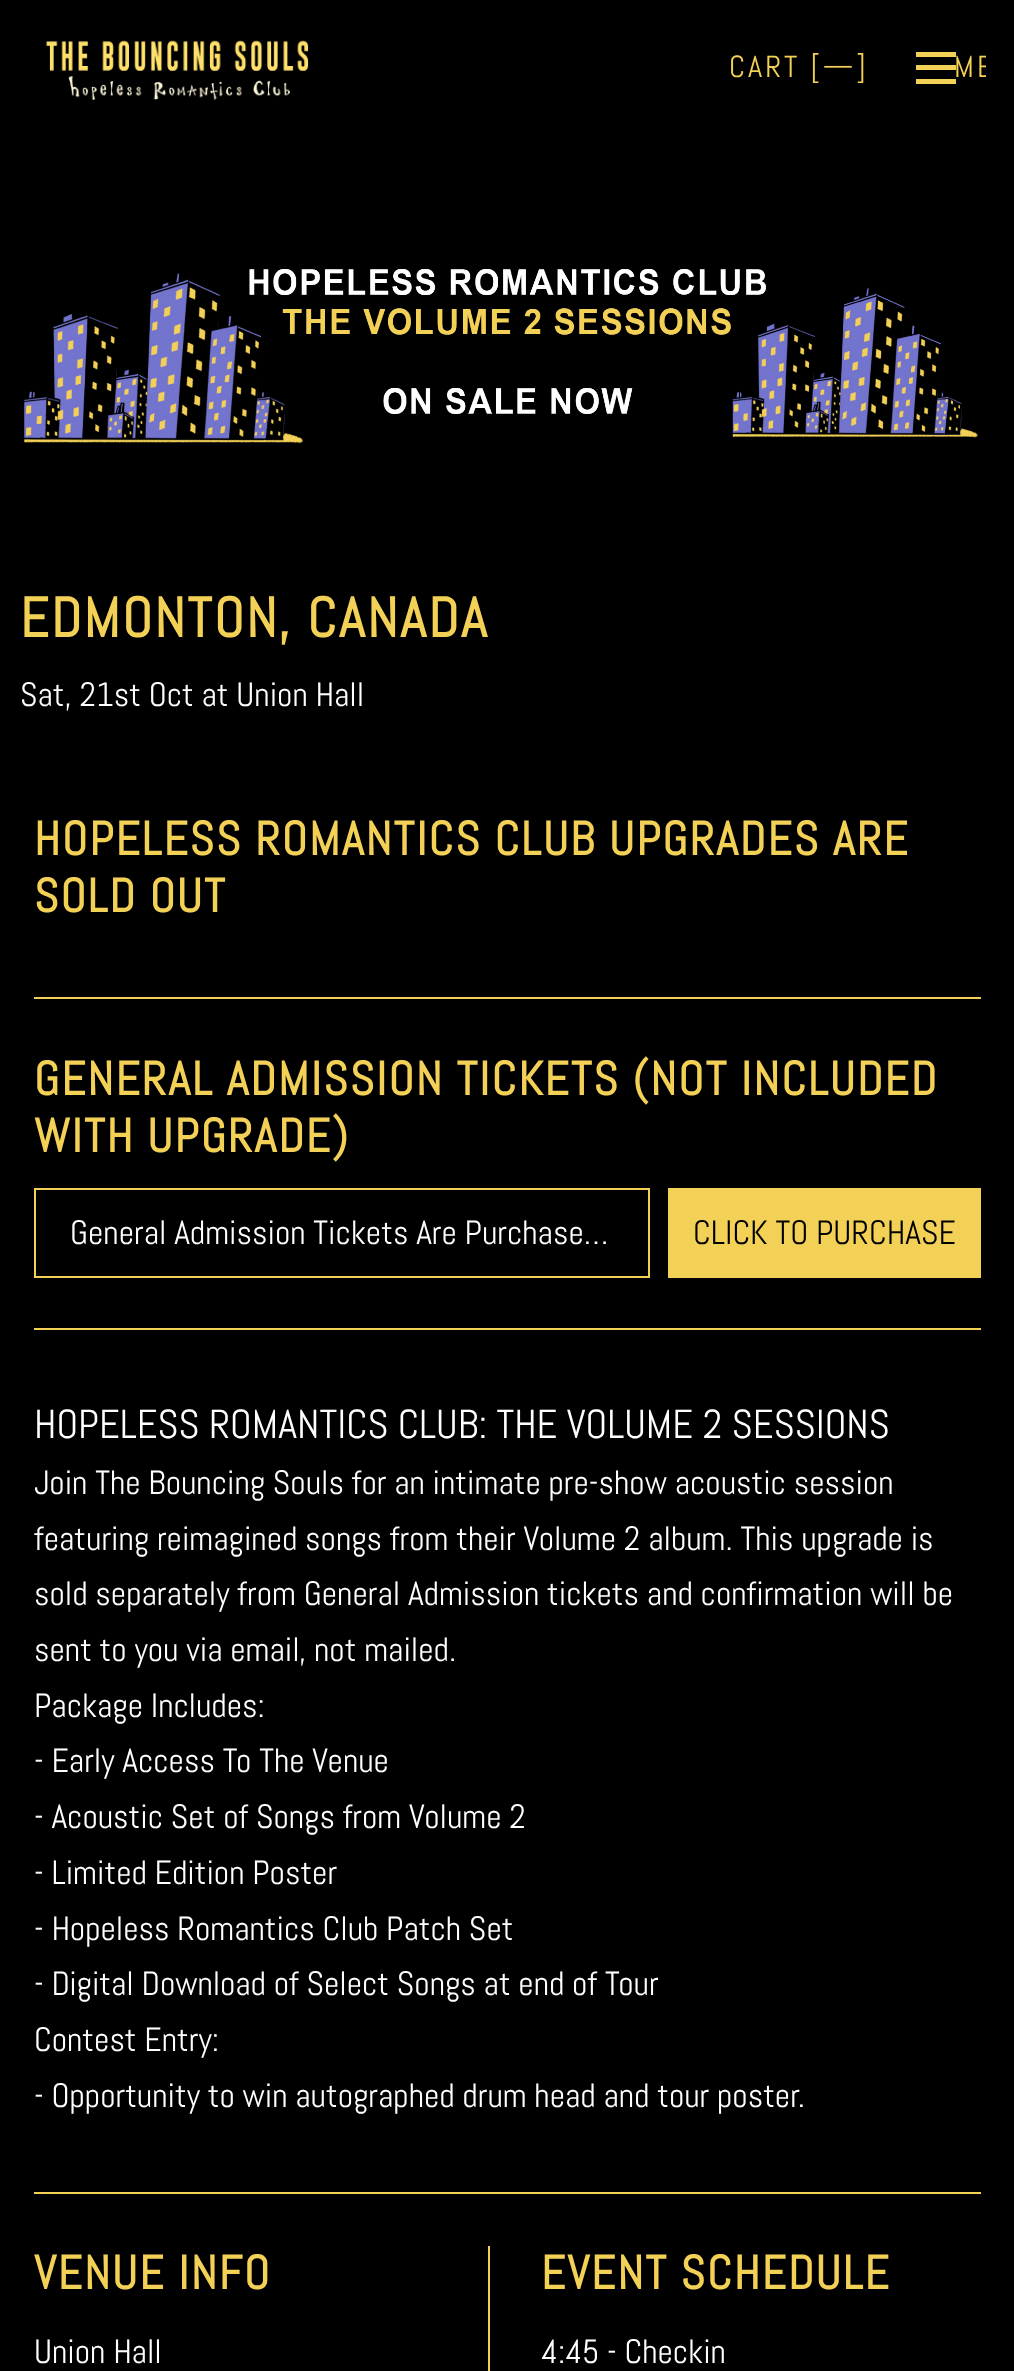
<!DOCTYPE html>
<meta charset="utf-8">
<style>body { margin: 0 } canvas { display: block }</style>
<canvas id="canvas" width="1014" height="2371"></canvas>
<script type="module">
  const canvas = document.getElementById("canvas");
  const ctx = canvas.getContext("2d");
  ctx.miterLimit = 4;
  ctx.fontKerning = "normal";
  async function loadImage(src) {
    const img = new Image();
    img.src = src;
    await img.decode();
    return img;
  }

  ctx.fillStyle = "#000000";
  ctx.fillRect(0, 0, 1014, 2371);
  ctx.drawImage(await loadImage("img1.png"), 46, 40, 263, 61);
  ctx.letterSpacing = "3px";
  ctx.font = "30.5px Abel";
  ctx.fillStyle = "#f3d056";
  ctx.fillText("CART [—]", 729, 77);
  ctx.fillRect(916, 65, 40, 5);
  ctx.fillRect(916, 52, 40, 5);
  ctx.fillRect(916, 79, 40, 5);
  ctx.save();
  ctx.beginPath();
  ctx.rect(887, 0, 99, 135);
  ctx.clip();
  ctx.fillText("ME", 954, 77);
  ctx.restore();
  ctx.drawImage(await loadImage("img2.png"), 24, 269, 954, 175);
  ctx.letterSpacing = "2.25px";
  ctx.font = "bold 55.75px Abel";
  ctx.fillText("EDMONTON, CANADA", 20, 637);
  ctx.letterSpacing = "0px";
  ctx.font = "33.75px Abel";
  ctx.fillStyle = "#ffffff";
  ctx.fillText("Sat, 21st Oct at Union Hall", 20, 706);
  ctx.letterSpacing = "1.9px";
  ctx.font = "bold 47.25px Abel";
  ctx.fillStyle = "#f3d056";
  ctx.fillText("HOPELESS ROMANTICS CLUB UPGRADES ARE", 34, 855);
  ctx.fillText("SOLD OUT", 34, 912);
  ctx.fillRect(34, 997, 947, 2);
  ctx.fillText("GENERAL ADMISSION TICKETS (NOT INCLUDED", 34, 1095);
  ctx.fillText("WITH UPGRADE)", 34, 1152);
  ctx.strokeStyle = "#f3d056";
  ctx.lineWidth = 2;
  ctx.strokeRect(35, 1189, 614, 88);
  ctx.letterSpacing = "0px";
  ctx.font = "33.75px Abel";
  ctx.fillStyle = "#ffffff";
  ctx.fillText("General Admission Tickets Are Purchase…", 70, 1244);
  ctx.fillStyle = "#f3d056";
  ctx.fillRect(668, 1188, 313, 90);
  ctx.fillStyle = "#000000";
  ctx.fillText("CLICK TO PURCHASE", 693, 1244);
  ctx.fillStyle = "#f3d056";
  ctx.fillRect(34, 1328, 947, 2);
  ctx.font = "40.5px Abel";
  ctx.fillStyle = "#ffffff";
  ctx.fillText("HOPELESS ROMANTICS CLUB: THE VOLUME 2 SESSIONS", 34, 1438);
  ctx.font = "33.75px Abel";
  ctx.fillText("Join The Bouncing Souls for an intimate pre-show acoustic session", 34, 1494);
  ctx.fillText("featuring reimagined songs from their Volume 2 album. This upgrade is", 34, 1550);
  ctx.fillText("sold separately from General Admission tickets and confirmation will be", 34, 1605);
  ctx.fillText("sent to you via email, not mailed.", 34, 1661);
  ctx.fillText("Package Includes:", 34, 1717);
  ctx.fillText("- Early Access To The Venue", 34, 1772);
  ctx.fillText("- Acoustic Set of Songs from Volume 2", 34, 1828);
  ctx.fillText("- Limited Edition Poster", 34, 1884);
  ctx.fillText("- Hopeless Romantics Club Patch Set", 34, 1940);
  ctx.fillText("- Digital Download of Select Songs at end of Tour", 34, 1995);
  ctx.fillText("Contest Entry:", 34, 2051);
  ctx.fillText("- Opportunity to win autographed drum head and tour poster.", 34, 2107);
  ctx.fillStyle = "#f3d056";
  ctx.fillRect(34, 2192, 947, 2);
  ctx.letterSpacing = "1.9px";
  ctx.font = "bold 47.25px Abel";
  ctx.fillText("VENUE INFO", 34, 2289);
  ctx.letterSpacing = "0px";
  ctx.font = "33.75px Abel";
  ctx.fillStyle = "#ffffff";
  ctx.fillText("Union Hall", 34, 2363);
  ctx.fillStyle = "#f3d056";
  ctx.fillRect(488, 2246, 2, 125);
  ctx.letterSpacing = "1.9px";
  ctx.font = "bold 47.25px Abel";
  ctx.fillText("EVENT SCHEDULE", 541, 2289);
  ctx.letterSpacing = "0px";
  ctx.font = "33.75px Abel";
  ctx.fillStyle = "#ffffff";
  ctx.fillText("4:45 - Checkin", 541, 2363);
</script>
